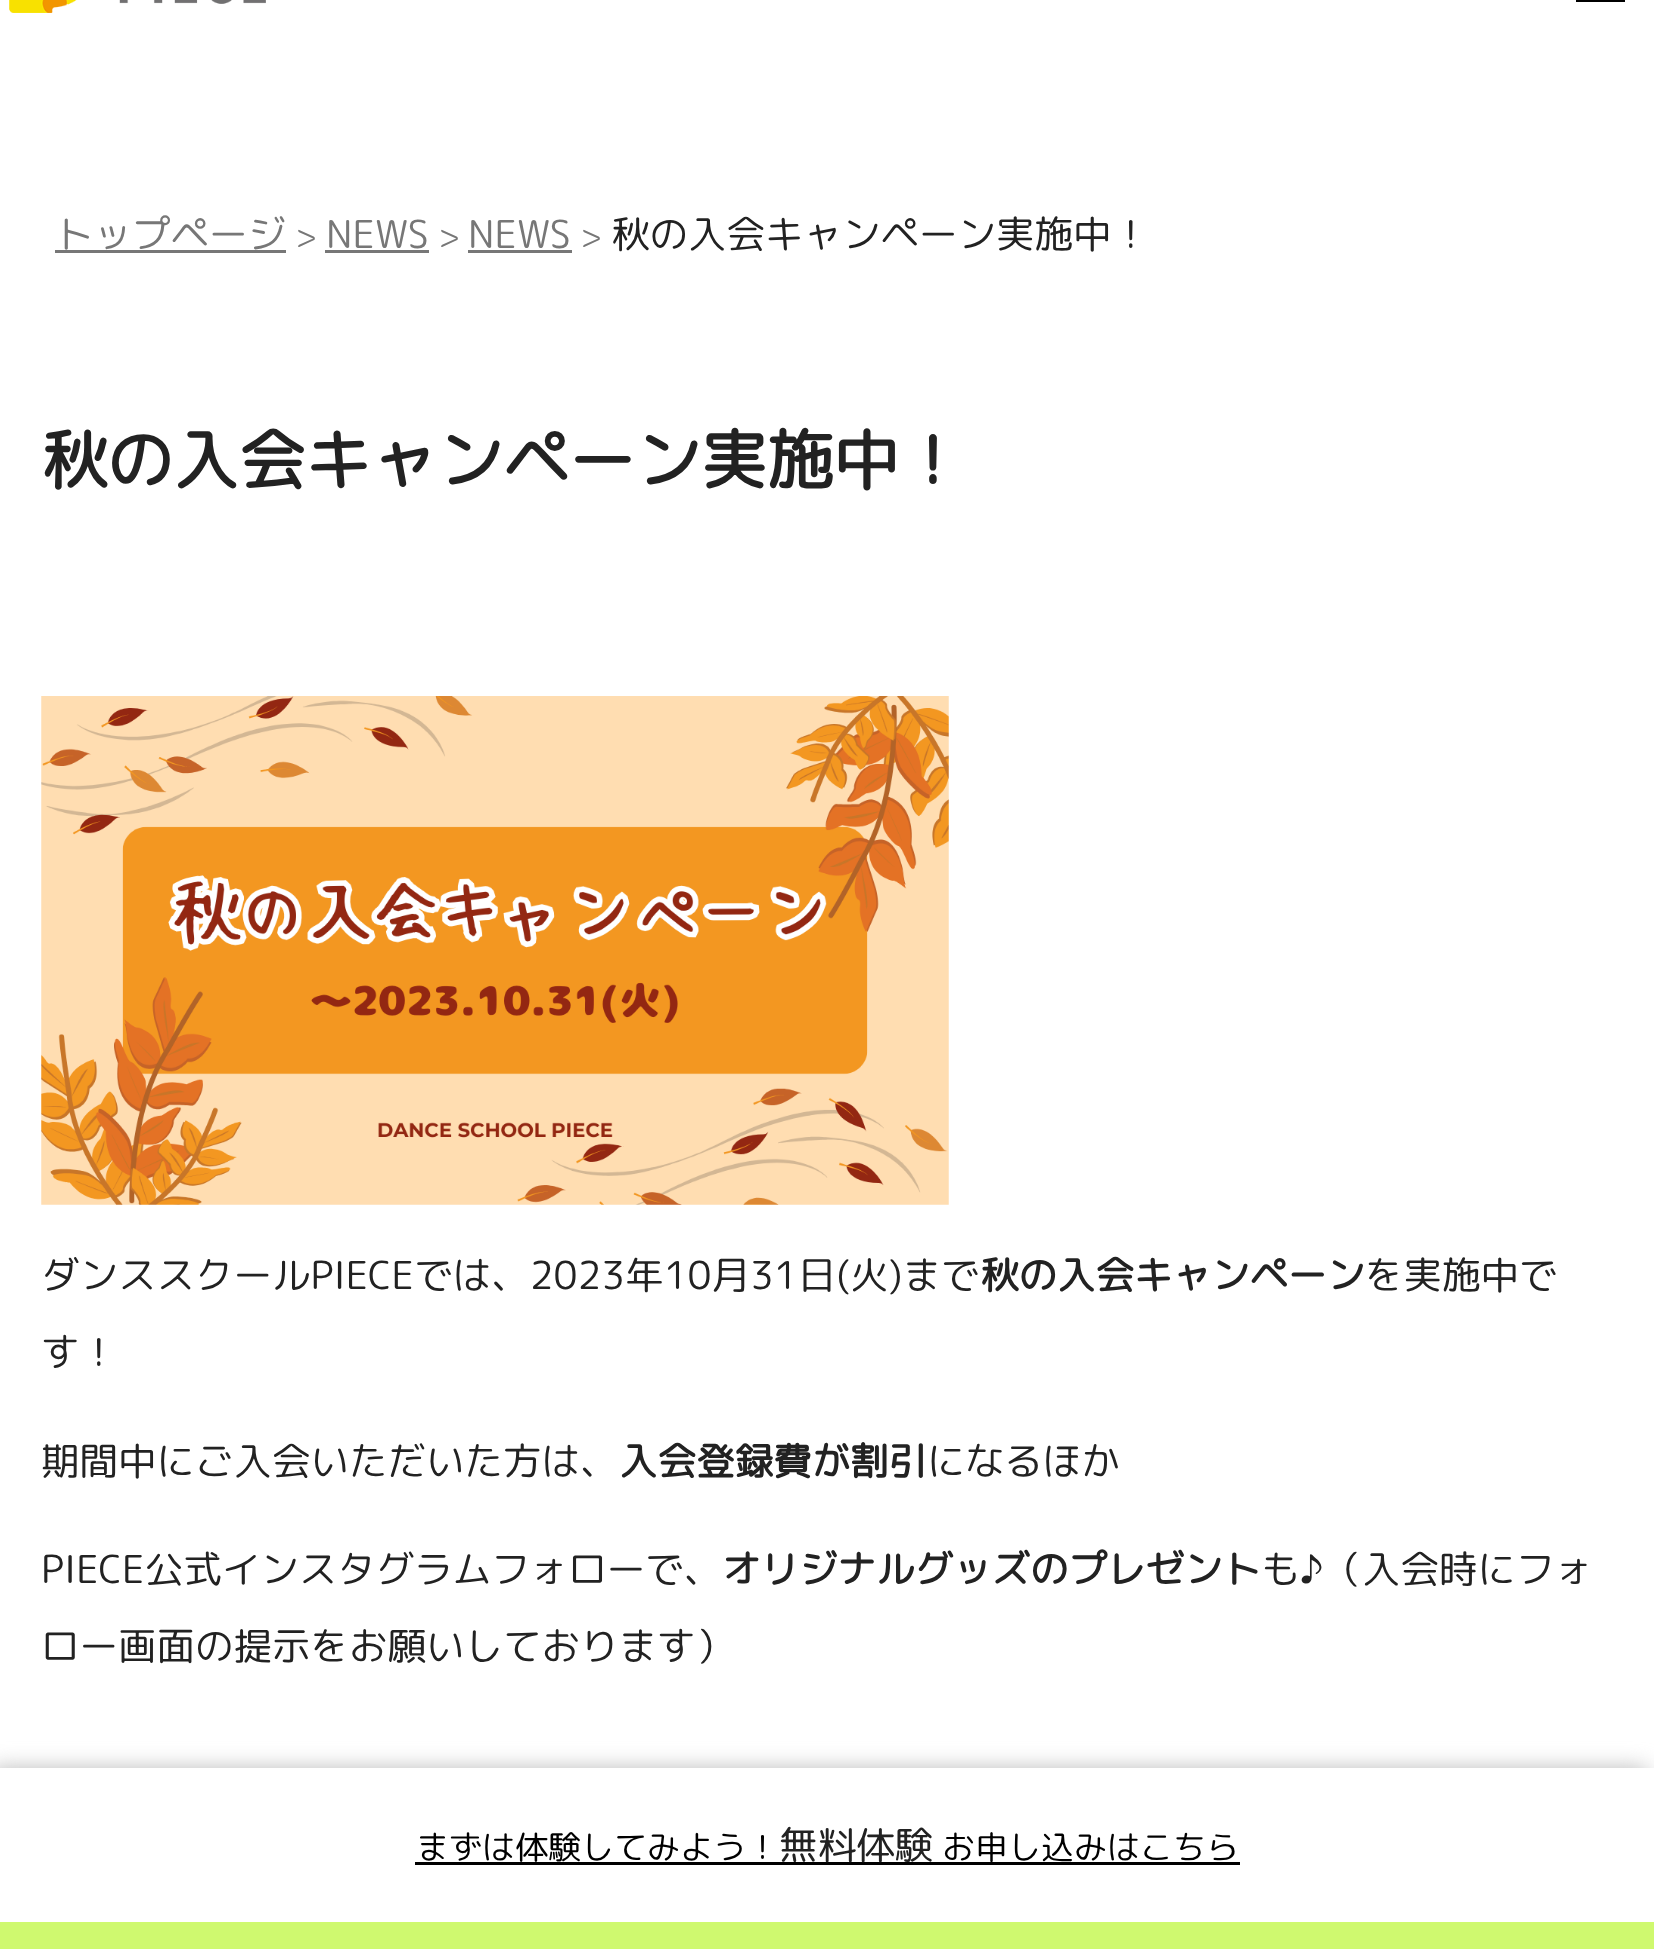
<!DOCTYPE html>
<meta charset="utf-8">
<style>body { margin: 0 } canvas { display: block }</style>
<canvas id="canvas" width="1654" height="1949"></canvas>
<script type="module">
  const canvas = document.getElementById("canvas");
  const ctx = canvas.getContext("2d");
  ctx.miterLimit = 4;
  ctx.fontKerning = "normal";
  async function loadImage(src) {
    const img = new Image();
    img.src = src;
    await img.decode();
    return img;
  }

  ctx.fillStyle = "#ffffff";
  ctx.fillRect(0, 0, 1654, 1949);
  ctx.drawImage(await loadImage("img1.png"), 9, 0, 257, 13);
  ctx.fillStyle = "#000000";
  ctx.beginPath();
  ctx.moveTo(1576, 2);
  ctx.lineTo(1576, -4);
  ctx.lineTo(1625, -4);
  ctx.lineTo(1625, 2);
  ctx.closePath();
  ctx.moveTo(1576, -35);
  ctx.lineTo(1625, -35);
  ctx.lineTo(1625, -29);
  ctx.lineTo(1576, -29);
  ctx.closePath();
  ctx.moveTo(1576, -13);
  ctx.lineTo(1576, -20);
  ctx.lineTo(1625, -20);
  ctx.lineTo(1625, -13);
  ctx.closePath();
  ctx.fill();
  ctx.font = "38.5px 'Rounded Mplus 1c'";
  ctx.fillStyle = "#777777";
  ctx.fillText("トップページ", 55, 248);
  ctx.fillRect(55, 250, 231, 3);
  ctx.font = "33px 'Rounded Mplus 1c'";
  ctx.fillText(">", 295, 248);
  ctx.font = "38.5px 'Rounded Mplus 1c'";
  ctx.fillText("NEWS", 326, 248);
  ctx.fillRect(325, 250, 104, 3);
  ctx.font = "33px 'Rounded Mplus 1c'";
  ctx.fillText(">", 438, 248);
  ctx.font = "38.5px 'Rounded Mplus 1c'";
  ctx.fillText("NEWS", 468, 248);
  ctx.fillRect(468, 250, 104, 3);
  ctx.font = "33px 'Rounded Mplus 1c'";
  ctx.fillText(">", 580, 248);
  ctx.font = "38.5px 'Rounded Mplus 1c'";
  ctx.fillStyle = "#222222";
  ctx.fillText("秋の入会キャンペーン実施中！", 611, 248);
  ctx.font = "bold 66px 'Rounded Mplus 1c'";
  ctx.fillText("秋の入会キャンペーン実施中！", 41, 484);
  ctx.drawImage(await loadImage("img2.png"), 41, 696, 908, 509);
  ctx.font = "38.5px 'Rounded Mplus 1c'";
  ctx.fillText("ダンススクールPIECEでは、2023年10月31日(火)まで", 41, 1289);
  ctx.font = "bold 38.5px 'Rounded Mplus 1c'";
  ctx.fillText("秋の入会キャンペーン", 980, 1289);
  ctx.font = "38.5px 'Rounded Mplus 1c'";
  ctx.fillText("を実施中で", 1365, 1289);
  ctx.fillText("す！", 41, 1366);
  ctx.fillText("期間中にご入会いただいた方は、", 41, 1475);
  ctx.font = "bold 38.5px 'Rounded Mplus 1c'";
  ctx.fillText("入会登録費が割引", 619, 1475);
  ctx.font = "38.5px 'Rounded Mplus 1c'";
  ctx.fillText("になるほか", 927, 1475);
  ctx.fillText("PIECE公式インスタグラムフォローで、", 41, 1583);
  ctx.font = "bold 38.5px 'Rounded Mplus 1c'";
  ctx.fillText("オリジナルグッズのプレゼント", 722, 1583);
  ctx.font = "38.5px 'Rounded Mplus 1c'";
  ctx.fillText("も♪（入会時にフォ", 1261, 1583);
  ctx.fillText("ロー画面の提示をお願いしております）", 41, 1660);
  ctx.fillStyle = "#bbbbbb";
  ctx.filter = "blur(11px)";
  ctx.beginPath();
  ctx.rect(-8, 1768, 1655, 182);
  ctx.fill();
  ctx.filter = "none";
  ctx.fillStyle = "#ffffff";
  ctx.fillRect(0, 1768, 1654, 154);
  ctx.fillStyle = "#cff96f";
  ctx.fillRect(0, 1922, 1654, 27);
  ctx.font = "33px 'Rounded Mplus 1c'";
  ctx.fillStyle = "#000000";
  ctx.fillText("まずは体験してみよう！", 416, 1859);
  ctx.fillRect(415, 1862, 825, 3);
  ctx.font = "38.5px 'Rounded Mplus 1c'";
  ctx.fillStyle = "#222222";
  ctx.fillText("無料体験", 779, 1859);
  ctx.font = "33px 'Rounded Mplus 1c'";
  ctx.fillStyle = "#000000";
  ctx.fillText("お申し込みはこちら", 942, 1859);
</script>
